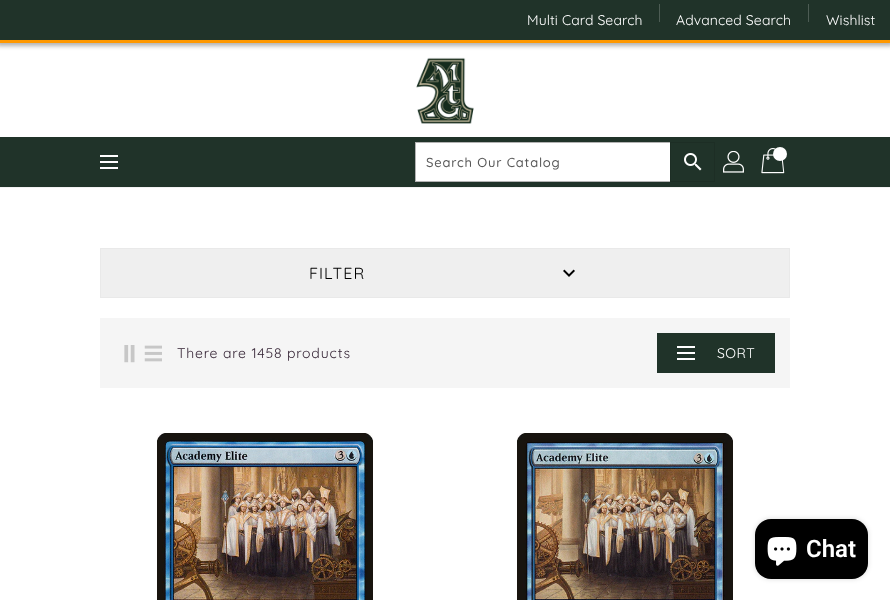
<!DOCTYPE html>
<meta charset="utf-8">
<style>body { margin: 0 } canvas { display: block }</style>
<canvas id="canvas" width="890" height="600"></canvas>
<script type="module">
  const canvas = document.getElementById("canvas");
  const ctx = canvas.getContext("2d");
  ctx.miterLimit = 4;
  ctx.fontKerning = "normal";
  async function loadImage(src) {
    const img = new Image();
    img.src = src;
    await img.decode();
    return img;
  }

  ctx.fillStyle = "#ffffff";
  ctx.fillRect(0, 0, 890, 600);
  ctx.fillStyle = "#f2f2f2";
  ctx.fillRect(0, 187, 890, 1);
  ctx.fillStyle = "rgba(0, 0, 0, 0.3)";
  ctx.filter = "blur(2px)";
  ctx.beginPath();
  ctx.rect(-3, -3, 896, 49);
  ctx.fill();
  ctx.filter = "none";
  ctx.fillStyle = "#203329";
  ctx.fillRect(0, 0, 890, 40);
  ctx.fillStyle = "#ff9800";
  ctx.fillRect(0, 40, 890, 3);
  ctx.letterSpacing = "0.1px";
  ctx.font = "14px Quicksand";
  ctx.fillStyle = "#ffffff";
  ctx.fillText("Multi Card Search", 527, 25);
  ctx.fillStyle = "#4d5c54";
  ctx.fillRect(659, 4, 1, 18);
  ctx.fillStyle = "#ffffff";
  ctx.fillText("Advanced Search", 676, 25);
  ctx.fillStyle = "#4d5c54";
  ctx.fillRect(808, 4, 1, 18);
  ctx.fillStyle = "#ffffff";
  ctx.fillText("Wishlist", 826, 25);
  ctx.drawImage(await loadImage("img1.png"), 416, 57, 58, 67);
  ctx.fillStyle = "#203329";
  ctx.fillRect(0, 137, 890, 50);
  ctx.fillStyle = "#ffffff";
  ctx.fillRect(100, 155, 18, 2);
  ctx.fillRect(100, 161, 18, 2);
  ctx.fillRect(100, 167, 18, 2);
  ctx.fillRect(416, 143, 254, 38);
  ctx.strokeStyle = "#b3b3b3";
  ctx.strokeRect(415.5, 142.5, 299, 39);
  ctx.letterSpacing = "0.8px";
  ctx.font = "500 13px Quicksand";
  ctx.fillStyle = "#595959";
  ctx.fillText("Search Our Catalog", 426, 167);
  ctx.strokeStyle = "#1d2e25";
  ctx.strokeRect(670.5, 142.5, 44, 39);
  ctx.drawImage(await loadImage("img2.png"), 684, 153, 18, 18);
  ctx.drawImage(await loadImage("img3.png"), 723, 151, 21, 22);
  ctx.drawImage(await loadImage("img4.png"), 761, 148, 24, 26);
  ctx.fillStyle = "#ffffff";
  ctx.beginPath();
  ctx.arc(780, 154, 7, 0, Math.PI * 2);
  ctx.fill();
  ctx.strokeStyle = "#e9e9e9";
  ctx.strokeRect(100.5, 248.5, 689, 49);
  ctx.fillStyle = "#efefef";
  ctx.fillRect(101, 249, 688, 48);
  ctx.letterSpacing = "1px";
  ctx.font = "16px Quicksand";
  ctx.fillStyle = "#000000";
  ctx.fillText("FILTER", 309, 279);
  ctx.drawImage(await loadImage("img5.png"), 563, 269, 12, 8);
  ctx.fillStyle = "#f5f5f5";
  ctx.fillRect(100, 318, 690, 70);
  ctx.drawImage(await loadImage("img6.png"), 124, 345, 11, 18);
  ctx.drawImage(await loadImage("img7.png"), 144, 345, 18, 17);
  ctx.letterSpacing = "0.8px";
  ctx.font = "14px Quicksand";
  ctx.fillStyle = "#332233";
  ctx.fillText("There are 1458 products", 177, 358);
  ctx.fillStyle = "#203329";
  ctx.fillRect(657, 333, 118, 40);
  ctx.fillStyle = "#ffffff";
  ctx.fillRect(677, 346, 18, 2);
  ctx.fillRect(677, 352, 18, 2);
  ctx.fillRect(677, 358, 18, 2);
  ctx.letterSpacing = "0.5px";
  ctx.fillText("SORT", 717, 358);
  ctx.drawImage(await loadImage("img8.png"), 157, 433, 216, 167);
  ctx.drawImage(await loadImage("img9.png"), 517, 433, 216, 167);
  ctx.fillStyle = "rgba(0, 0, 0, 0.15)";
  ctx.filter = "blur(2.5px)";
  ctx.beginPath();
  ctx.roundRect(755, 519, 113, 60, 16);
  ctx.fill();
  ctx.filter = "none";
  ctx.fillStyle = "#000000";
  ctx.beginPath();
  ctx.roundRect(755, 519, 113, 60, 16);
  ctx.fill();
  ctx.drawImage(await loadImage("img10.png"), 767, 537, 30, 29);
  ctx.letterSpacing = "0px";
  ctx.font = "600 24px Roboto";
  ctx.fillStyle = "#ffffff";
  ctx.fillText("Chat", 806, 557);
</script>
